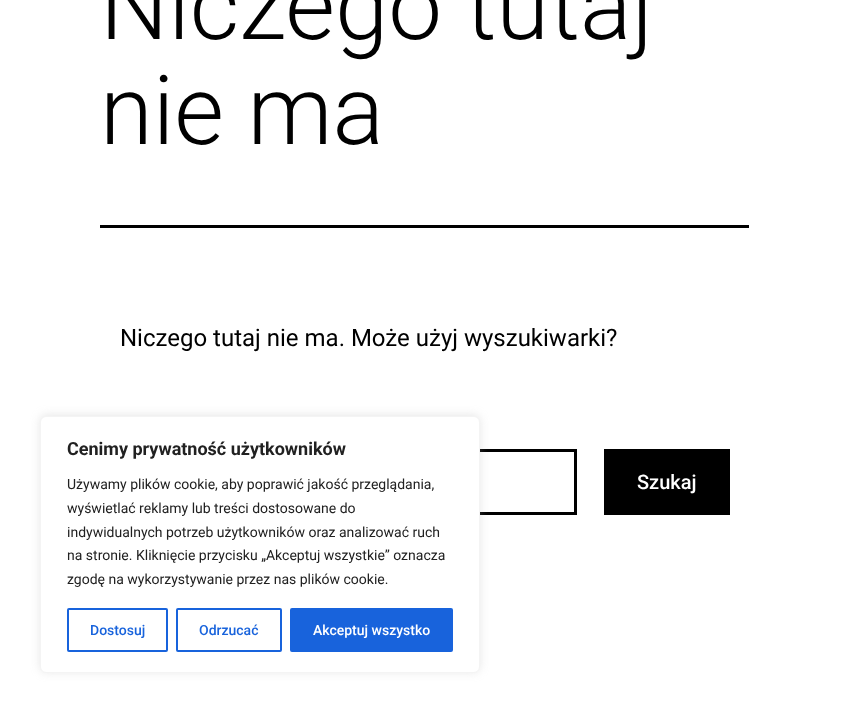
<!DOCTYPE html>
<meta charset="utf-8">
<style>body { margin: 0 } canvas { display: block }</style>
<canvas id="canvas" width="849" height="713"></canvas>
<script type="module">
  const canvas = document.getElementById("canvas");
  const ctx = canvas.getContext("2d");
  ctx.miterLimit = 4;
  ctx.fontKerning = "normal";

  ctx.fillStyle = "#ffffff";
  ctx.fillRect(0, 0, 849, 713);
  ctx.fillStyle = "#000000";
  ctx.fillRect(100, 225, 649, 3);
  ctx.font = "300 96px Roboto";
  ctx.fillText("Niczego tutaj", 100, 39);
  ctx.fillText("nie ma", 100, 144);
  ctx.font = "24px Roboto";
  ctx.fillText("Niczego tutaj nie ma. Może użyj wyszukiwarki?", 120, 346);
  ctx.strokeStyle = "#000000";
  ctx.lineWidth = 3;
  ctx.strokeRect(123.5, 450.5, 452, 63);
  ctx.fillRect(604, 449, 126, 66);
  ctx.font = "500 20px Roboto";
  ctx.fillStyle = "#ffffff";
  ctx.fillText("Szukaj", 637, 489);
  ctx.fillStyle = "rgba(172, 171, 171, 0.3)";
  ctx.filter = "blur(5px)";
  ctx.beginPath();
  ctx.roundRect(40, 415, 440, 257, 6);
  ctx.fill();
  ctx.filter = "none";
  ctx.fillStyle = "#ffffff";
  ctx.beginPath();
  ctx.roundRect(40.5, 416.5, 439, 256, 5.5);
  ctx.fill();
  ctx.strokeStyle = "#f4f4f4";
  ctx.lineWidth = 1;
  ctx.stroke();
  ctx.font = "bold 18px Roboto";
  ctx.fillStyle = "#212121";
  ctx.fillText("Cenimy prywatność użytkowników", 67, 455);
  ctx.font = "14px Roboto";
  ctx.fillText("Używamy plików cookie, aby poprawić jakość przeglądania,", 67, 489);
  ctx.fillText("wyświetlać reklamy lub treści dostosowane do", 67, 513);
  ctx.fillText("indywidualnych potrzeb użytkowników oraz analizować ruch", 67, 537);
  ctx.fillText("na stronie. Kliknięcie przycisku „Akceptuj wszystkie” oznacza", 67, 560);
  ctx.fillText("zgodę na wykorzystywanie przez nas plików cookie.", 67, 584);
  ctx.beginPath();
  ctx.roundRect(68, 609, 99, 42, 1);
  ctx.strokeStyle = "#1863dc";
  ctx.lineWidth = 2;
  ctx.stroke();
  ctx.font = "500 14px Roboto";
  ctx.fillStyle = "#1863dc";
  ctx.fillText("Dostosuj", 90, 635);
  ctx.beginPath();
  ctx.roundRect(177, 609, 104, 42, 1);
  ctx.stroke();
  ctx.fillText("Odrzucać", 199, 635);
  ctx.beginPath();
  ctx.roundRect(291, 609, 161, 42, 1);
  ctx.fill();
  ctx.stroke();
  ctx.fillStyle = "#ffffff";
  ctx.fillText("Akceptuj wszystko", 313, 635);
</script>
